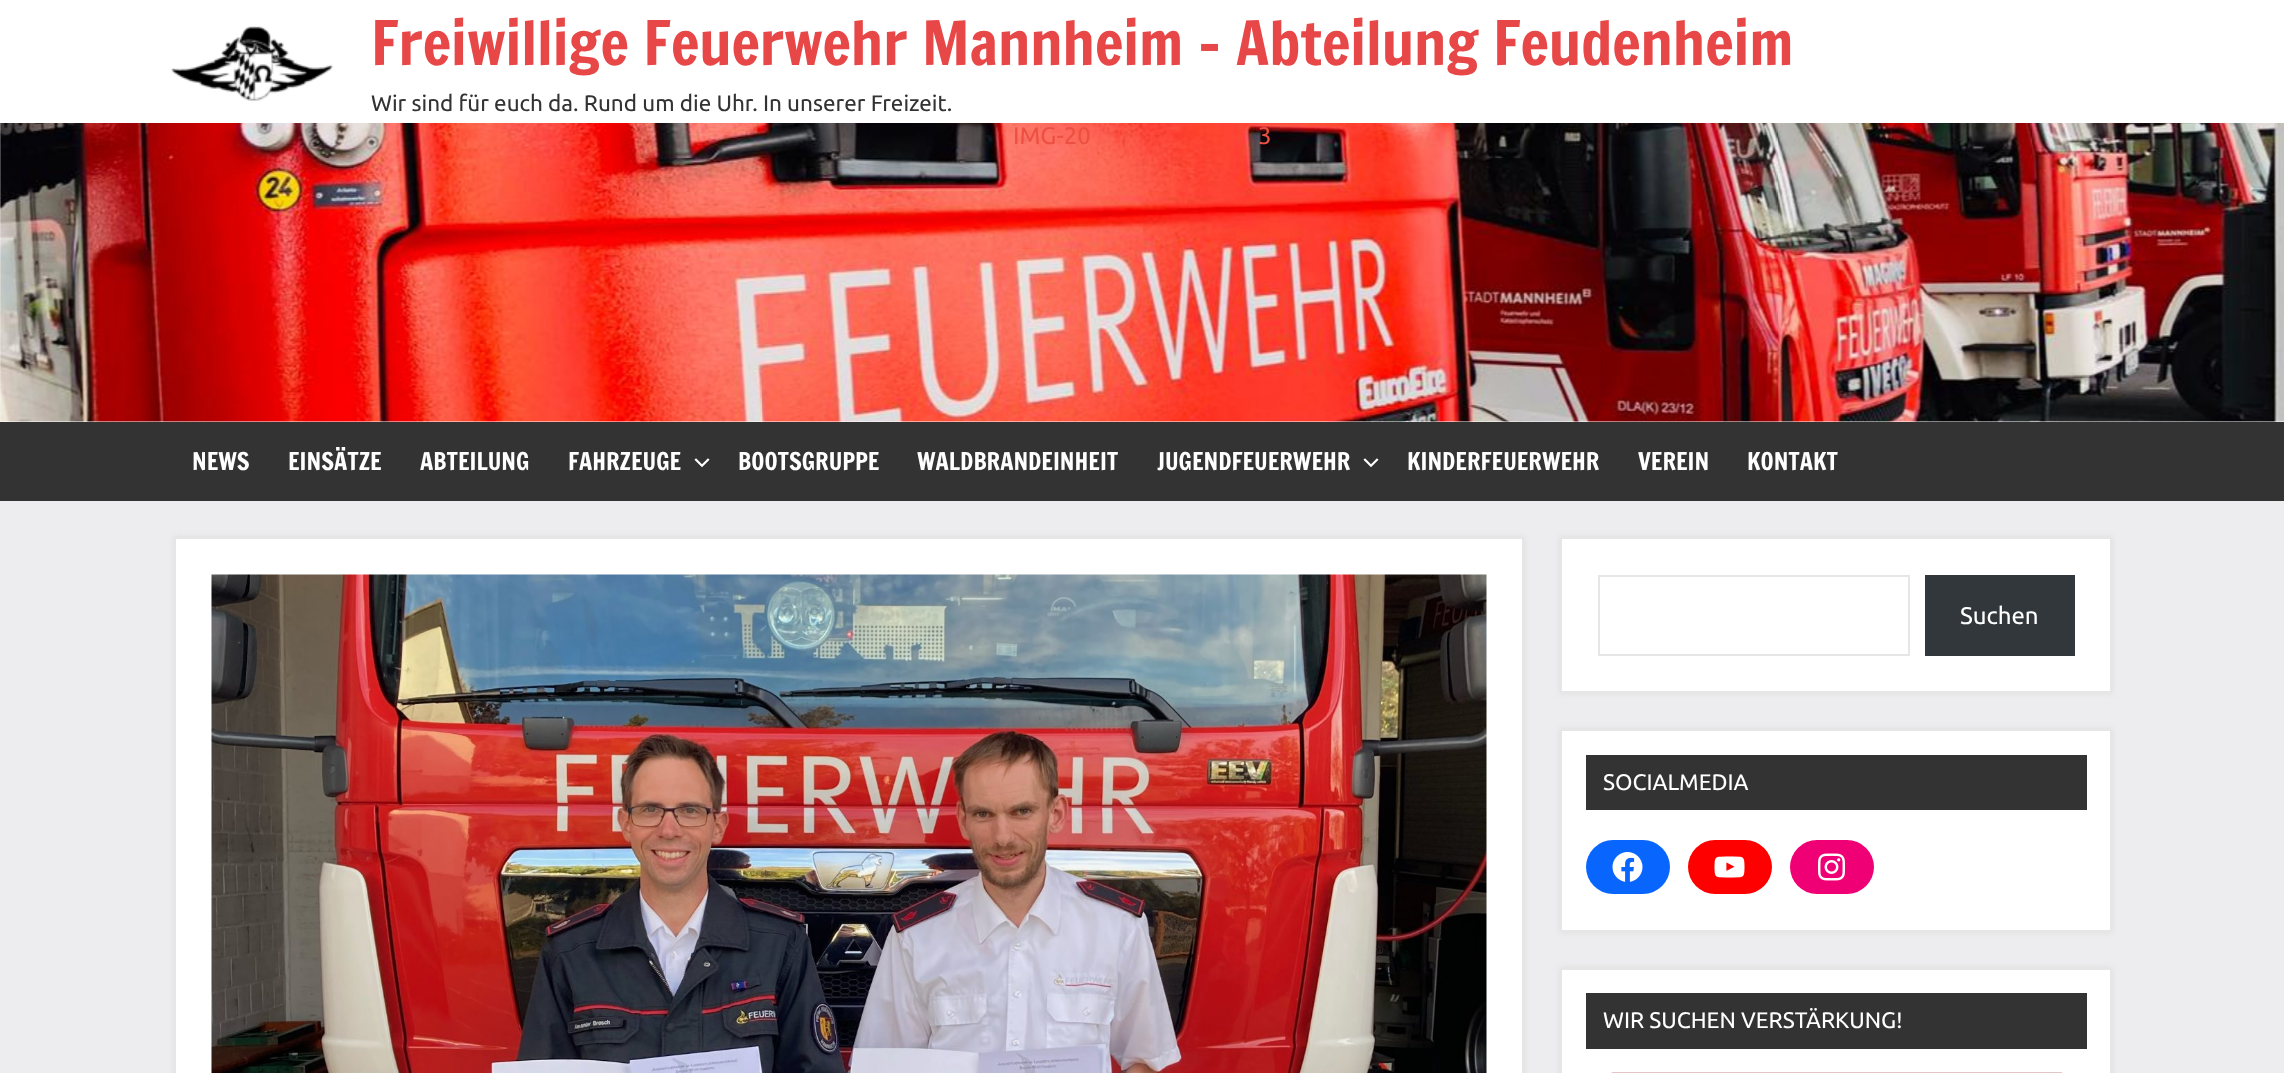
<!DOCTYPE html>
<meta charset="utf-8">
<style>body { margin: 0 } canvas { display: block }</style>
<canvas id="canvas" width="2284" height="1073"></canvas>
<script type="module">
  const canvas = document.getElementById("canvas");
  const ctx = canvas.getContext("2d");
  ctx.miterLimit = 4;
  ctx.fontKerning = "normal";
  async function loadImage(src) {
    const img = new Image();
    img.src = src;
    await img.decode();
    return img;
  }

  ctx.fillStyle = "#ededef";
  ctx.fillRect(0, 0, 2284, 1073);
  ctx.fillStyle = "#ffffff";
  ctx.fillRect(0, 0, 2284, 422);
  ctx.drawImage(await loadImage("img1.png"), 171, 26, 163, 75);
  ctx.font = "60px Francois One";
  ctx.fillStyle = "#e84747";
  ctx.fillText("Freiwillige Feuerwehr Mannheim – Abteilung Feudenheim", 371, 65);
  ctx.font = "22.5px Ubuntu";
  ctx.fillStyle = "#333333";
  ctx.fillText("Wir sind für euch da. Rund um die Uhr. In unserer Freizeit.", 371, 111);
  ctx.drawImage(await loadImage("img2.png"), 0, 123, 2284, 299);
  ctx.font = "24px Ubuntu";
  ctx.fillStyle = "#ec5042";
  ctx.fillText("IMG-20", 1013, 144);
  ctx.fillText("3", 1258, 144);
  ctx.fillStyle = "#333333";
  ctx.fillRect(0, 422, 2284, 79);
  ctx.font = "24px Francois One";
  ctx.fillStyle = "#ffffff";
  ctx.fillText("NEWS", 192, 470);
  ctx.fillText("EINSÄTZE", 288, 470);
  ctx.fillText("ABTEILUNG", 420, 470);
  ctx.fillText("FAHRZEUGE", 568, 470);
  ctx.drawImage(await loadImage("img3.png"), 694, 458, 16, 10);
  ctx.fillText("BOOTSGRUPPE", 738, 470);
  ctx.fillText("WALDBRANDEINHEIT", 917, 470);
  ctx.fillText("JUGENDFEUERWEHR", 1157, 470);
  ctx.drawImage(await loadImage("img3.png"), 1363, 458, 16, 10);
  ctx.fillText("KINDERFEUERWEHR", 1407, 470);
  ctx.fillText("VEREIN", 1638, 470);
  ctx.fillText("KONTAKT", 1747, 470);
  ctx.fillStyle = "#dddddd";
  ctx.filter = "blur(3px)";
  ctx.beginPath();
  ctx.rect(174, 537, 1350, 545);
  ctx.fill();
  ctx.filter = "none";
  ctx.fillStyle = "#ffffff";
  ctx.beginPath();
  ctx.rect(175, 538, 1348, 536);
  ctx.fill();
  ctx.strokeStyle = "#e6e6e6";
  ctx.lineWidth = 2;
  ctx.stroke();
  ctx.drawImage(await loadImage("img4.png"), 211, 574, 1276, 499);
  ctx.fillStyle = "#dddddd";
  ctx.filter = "blur(3px)";
  ctx.beginPath();
  ctx.rect(1560, 537, 552, 156);
  ctx.fill();
  ctx.filter = "none";
  ctx.fillStyle = "#ffffff";
  ctx.beginPath();
  ctx.rect(1561, 538, 550, 154);
  ctx.fill();
  ctx.stroke();
  ctx.strokeRect(1599, 576, 310, 79);
  ctx.fillStyle = "#32373c";
  ctx.fillRect(1925, 575, 150, 81);
  ctx.font = "24px Ubuntu";
  ctx.fillStyle = "#ffffff";
  ctx.fillText("Suchen", 1960, 624);
  ctx.fillStyle = "#dddddd";
  ctx.filter = "blur(3px)";
  ctx.beginPath();
  ctx.rect(1560, 729, 552, 203);
  ctx.fill();
  ctx.filter = "none";
  ctx.fillStyle = "#ffffff";
  ctx.beginPath();
  ctx.rect(1561, 730, 550, 201);
  ctx.fill();
  ctx.stroke();
  ctx.fillStyle = "#333333";
  ctx.fillRect(1586, 755, 501, 55);
  ctx.font = "22.5px Ubuntu";
  ctx.fillStyle = "#ffffff";
  ctx.fillText("SOCIALMEDIA", 1603, 790);
  ctx.fillStyle = "#0866ff";
  ctx.beginPath();
  ctx.roundRect(1586, 840, 84, 54, 27);
  ctx.fill();
  ctx.drawImage(await loadImage("img5.png"), 1612, 852, 31, 30);
  ctx.fillStyle = "#ff0000";
  ctx.beginPath();
  ctx.roundRect(1688, 840, 84, 54, 27);
  ctx.fill();
  ctx.drawImage(await loadImage("img6.png"), 1714, 856, 31, 22);
  ctx.fillStyle = "#f00075";
  ctx.beginPath();
  ctx.roundRect(1790, 840, 84, 54, 27);
  ctx.fill();
  ctx.drawImage(await loadImage("img7.png"), 1818, 853, 27, 28);
  ctx.fillStyle = "#dddddd";
  ctx.filter = "blur(3px)";
  ctx.beginPath();
  ctx.rect(1560, 968, 552, 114);
  ctx.fill();
  ctx.filter = "none";
  ctx.fillStyle = "#ffffff";
  ctx.beginPath();
  ctx.rect(1561, 969, 550, 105);
  ctx.fill();
  ctx.stroke();
  ctx.fillStyle = "#333333";
  ctx.fillRect(1586, 993, 501, 56);
  ctx.fillStyle = "#ffffff";
  ctx.fillText("WIR SUCHEN VERSTÄRKUNG!", 1603, 1028);
  ctx.drawImage(await loadImage("img8.png"), 1610, 1072, 453, 1);
</script>
